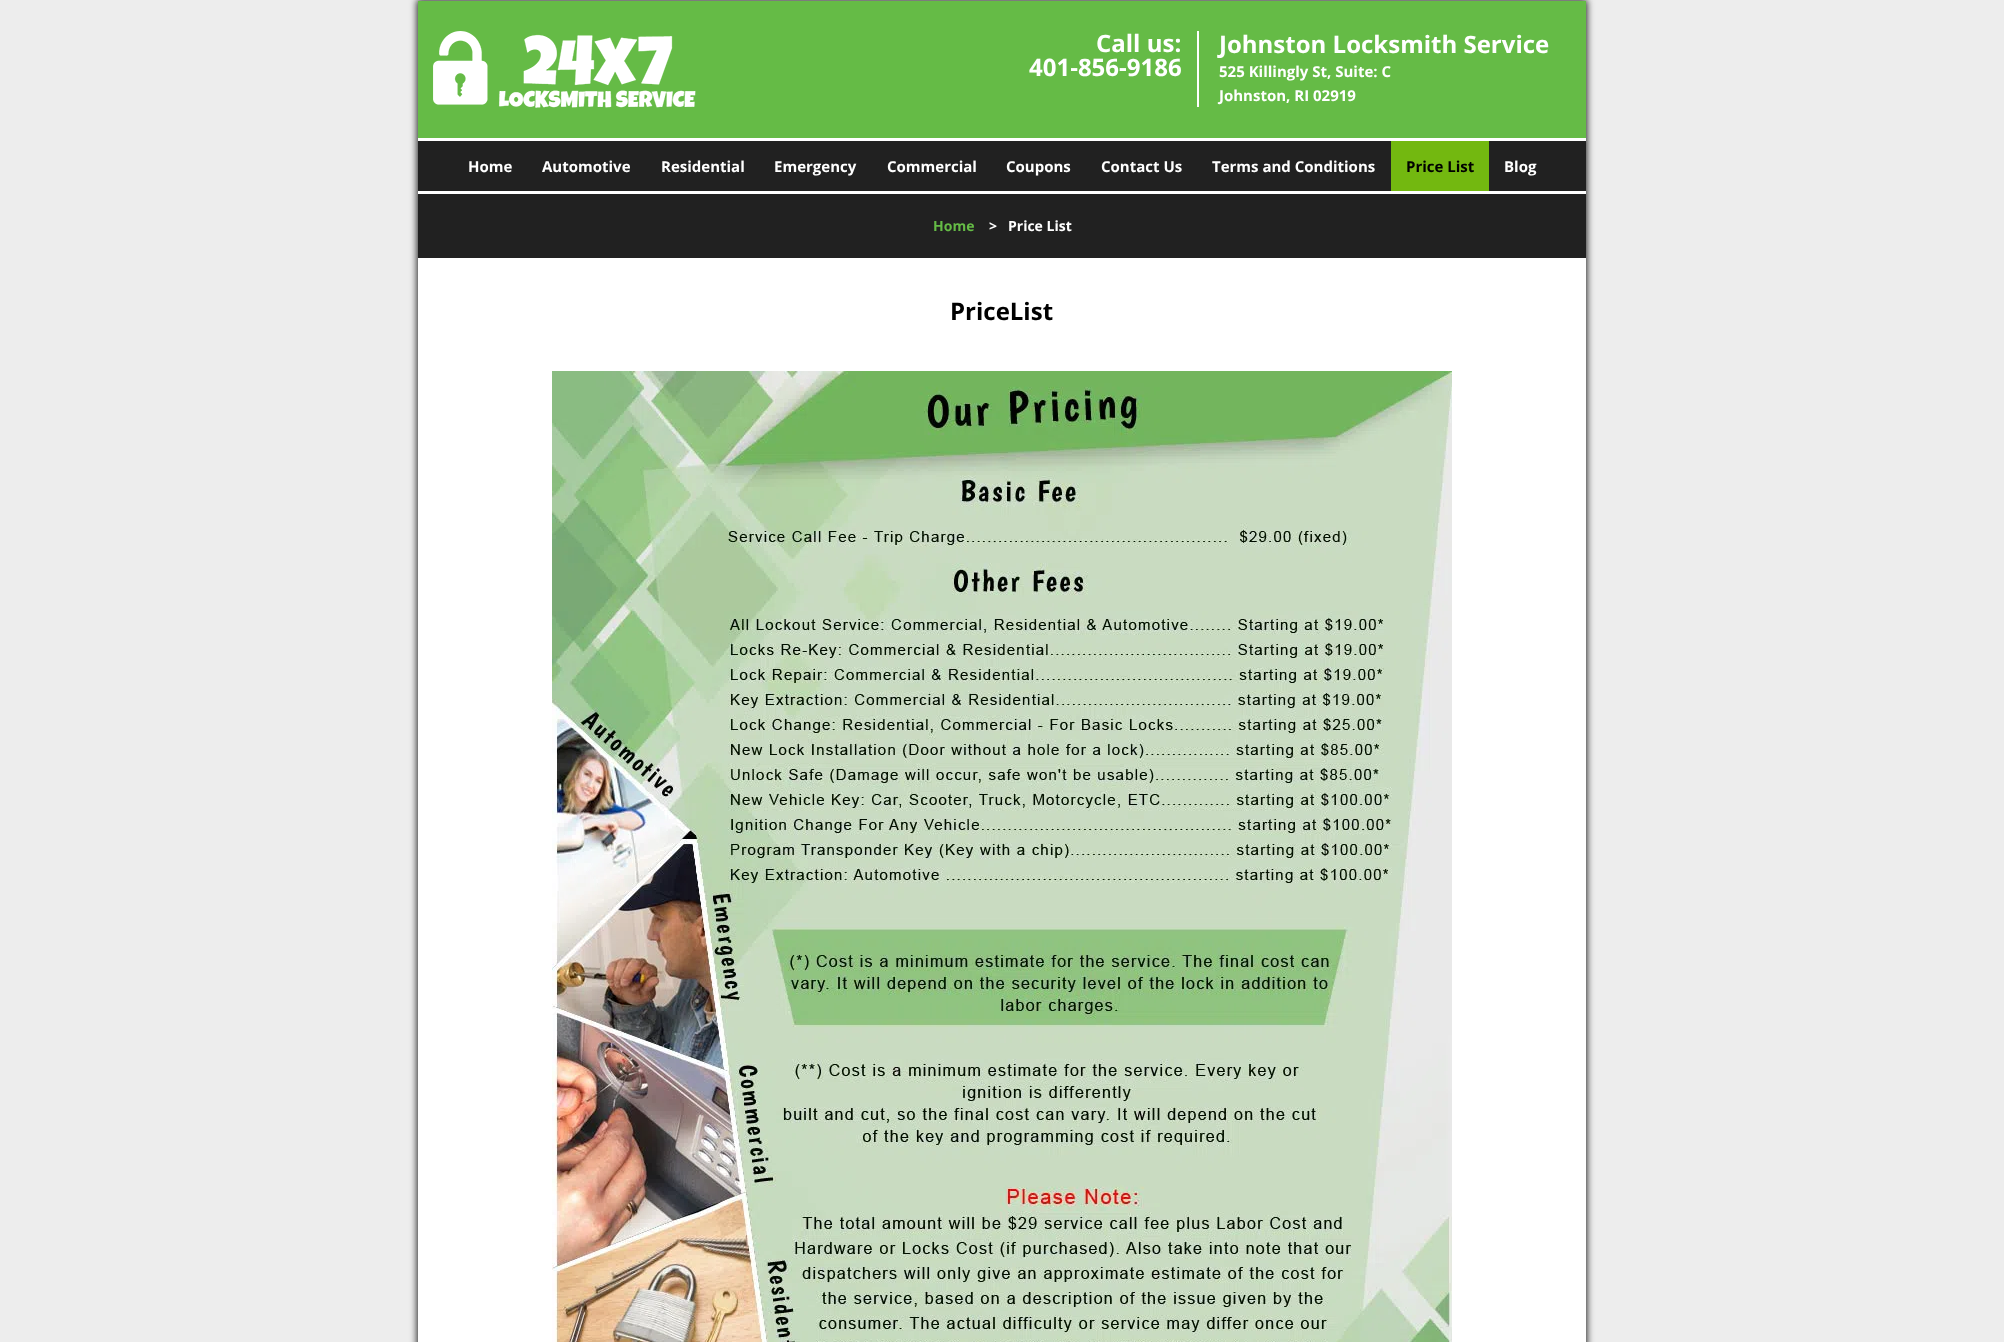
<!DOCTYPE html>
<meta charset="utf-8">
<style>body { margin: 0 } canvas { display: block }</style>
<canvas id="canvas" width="2004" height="1342"></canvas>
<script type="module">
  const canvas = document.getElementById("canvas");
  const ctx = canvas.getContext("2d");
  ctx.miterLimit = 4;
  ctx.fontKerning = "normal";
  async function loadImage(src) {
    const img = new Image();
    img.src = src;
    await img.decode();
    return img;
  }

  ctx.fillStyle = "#ededed";
  ctx.fillRect(0, 0, 2004, 1342);
  ctx.fillStyle = "#212121";
  ctx.filter = "blur(3.5px)";
  ctx.beginPath();
  ctx.rect(417, 0, 1170, 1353);
  ctx.fill();
  ctx.filter = "none";
  ctx.fillStyle = "#65bb46";
  ctx.fillRect(418, 1, 1168, 137);
  ctx.drawImage(await loadImage("img1.png"), 433, 31, 263, 77);
  ctx.font = "bold 24px Open Sans";
  ctx.fillStyle = "#ffffff";
  ctx.fillText("Call us:", 1096, 52);
  ctx.fillText("401-856-9186", 1029, 76);
  ctx.fillRect(1197, 31, 2, 76);
  ctx.fillText("Johnston Locksmith Service", 1219, 53);
  ctx.font = "bold 15px Open Sans";
  ctx.fillText("525 Killingly St, Suite: C", 1219, 77);
  ctx.fillText("Johnston, RI 02919", 1219, 101);
  ctx.fillStyle = "#212121";
  ctx.fillRect(418, 141, 1168, 50);
  ctx.fillStyle = "#ffffff";
  ctx.fillRect(418, 138, 1168, 3);
  ctx.fillRect(418, 191, 1168, 3);
  ctx.fillText("Home", 468, 172);
  ctx.fillText("Automotive", 542, 172);
  ctx.fillText("Residential", 661, 172);
  ctx.fillText("Emergency", 774, 172);
  ctx.fillText("Commercial", 887, 172);
  ctx.fillText("Coupons", 1006, 172);
  ctx.fillText("Contact Us", 1101, 172);
  ctx.fillText("Terms and Conditions", 1212, 172);
  ctx.fillStyle = "#73b810";
  ctx.fillRect(1391, 141, 98, 50);
  ctx.fillStyle = "#000000";
  ctx.fillText("Price List", 1406, 172);
  ctx.fillStyle = "#ffffff";
  ctx.fillText("Blog", 1504, 172);
  ctx.fillStyle = "#212121";
  ctx.fillRect(418, 194, 1168, 64);
  ctx.font = "bold 14px Open Sans";
  ctx.fillStyle = "#65bb46";
  ctx.fillText("Home", 933, 231);
  ctx.fillStyle = "#ffffff";
  ctx.fillText(">", 989, 231);
  ctx.fillText("Price List", 1008, 231);
  ctx.fillRect(418, 258, 1168, 1084);
  ctx.font = "bold 24px Open Sans";
  ctx.fillStyle = "#000000";
  ctx.fillText("PriceList", 950, 320);
  ctx.drawImage(await loadImage("img2.png"), 552, 371, 900, 971);
</script>
